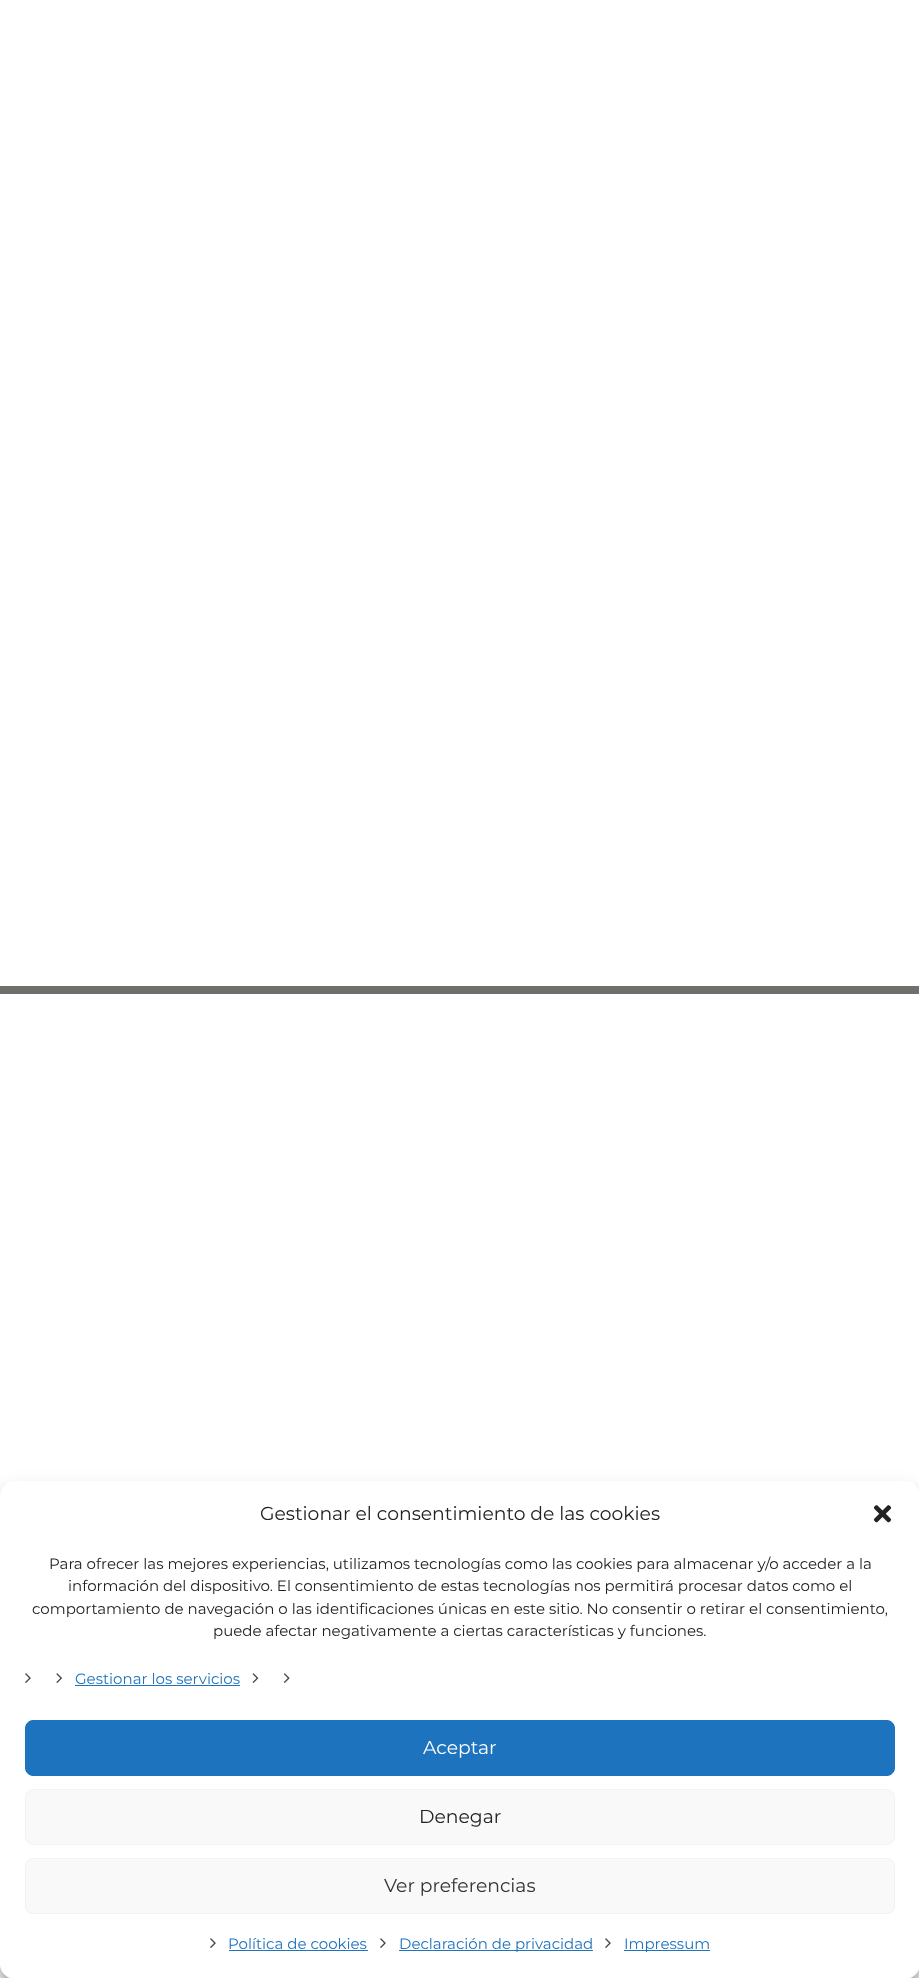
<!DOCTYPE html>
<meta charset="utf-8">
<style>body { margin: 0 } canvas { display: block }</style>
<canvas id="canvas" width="919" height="1978"></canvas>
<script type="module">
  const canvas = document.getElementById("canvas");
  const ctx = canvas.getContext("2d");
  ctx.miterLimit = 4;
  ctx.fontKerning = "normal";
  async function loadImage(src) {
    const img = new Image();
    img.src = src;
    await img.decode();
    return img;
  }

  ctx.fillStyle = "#ffffff";
  ctx.fillRect(0, 0, 919, 1978);
  ctx.fillStyle = "#6f706c";
  ctx.fillRect(0, 986, 919, 8);
  ctx.fillStyle = "rgba(0, 0, 0, 0.23)";
  ctx.filter = "blur(4px)";
  ctx.beginPath();
  ctx.roundRect(0, 1489, 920, 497, 15);
  ctx.fill();
  ctx.filter = "none";
  ctx.fillStyle = "rgba(0, 0, 0, 0.19)";
  ctx.filter = "blur(12.5px)";
  ctx.beginPath();
  ctx.roundRect(0, 1494, 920, 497, 15);
  ctx.fill();
  ctx.filter = "none";
  ctx.fillStyle = "#ffffff";
  ctx.beginPath();
  ctx.roundRect(0, 1481, 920, 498, 15);
  ctx.fill();
  ctx.font = "100 18.75px Montserrat";
  ctx.fillStyle = "#222222";
  ctx.fillText("Gestionar el consentimiento de las cookies", 260, 1520);
  ctx.drawImage(await loadImage("img1.png"), 873, 1505, 19, 18);
  ctx.font = "100 15px Montserrat";
  ctx.fillText("Para ofrecer las mejores experiencias, utilizamos tecnologías como las cookies para almacenar y/o acceder a la", 49, 1569);
  ctx.fillText("información del dispositivo. El consentimiento de estas tecnologías nos permitirá procesar datos como el", 68, 1591);
  ctx.fillText("comportamiento de navegación o las identificaciones únicas en este sitio. No consentir o retirar el consentimiento,", 32, 1614);
  ctx.fillText("puede afectar negativamente a ciertas características y funciones.", 213, 1636);
  ctx.drawImage(await loadImage("img2.png"), 25, 1673, 6, 10);
  ctx.drawImage(await loadImage("img3.png"), 56, 1673, 6, 10);
  ctx.fillStyle = "#1e73be";
  ctx.fillText("Gestionar los servicios", 75, 1684);
  ctx.fillRect(75, 1685, 165, 1);
  ctx.drawImage(await loadImage("img4.png"), 252, 1673, 7, 10);
  ctx.drawImage(await loadImage("img5.png"), 283, 1673, 7, 10);
  ctx.beginPath();
  ctx.roundRect(25.5, 1720.5, 869, 55, 7.5);
  ctx.fill();
  ctx.strokeStyle = "#1e73be";
  ctx.stroke();
  ctx.font = "100 18.75px Montserrat";
  ctx.fillStyle = "#ffffff";
  ctx.fillText("Aceptar", 423, 1754);
  ctx.fillStyle = "#f9f9f9";
  ctx.beginPath();
  ctx.roundRect(25.5, 1789.5, 869, 55, 7.5);
  ctx.fill();
  ctx.strokeStyle = "#f2f2f2";
  ctx.stroke();
  ctx.fillStyle = "#222222";
  ctx.fillText("Denegar", 419, 1823);
  ctx.fillStyle = "#f9f9f9";
  ctx.beginPath();
  ctx.roundRect(25.5, 1858.5, 869, 55, 7.5);
  ctx.fill();
  ctx.stroke();
  ctx.fillStyle = "#333333";
  ctx.fillText("Ver preferencias", 384, 1892);
  ctx.drawImage(await loadImage("img2.png"), 210, 1938, 6, 10);
  ctx.font = "100 15px Montserrat";
  ctx.fillStyle = "#1e73be";
  ctx.fillText("Política de cookies", 228, 1949);
  ctx.fillRect(229, 1950, 139, 1);
  ctx.drawImage(await loadImage("img2.png"), 380, 1938, 6, 10);
  ctx.fillRect(399, 1950, 194, 1);
  ctx.fillText("Declaración de privacidad", 399, 1949);
  ctx.drawImage(await loadImage("img2.png"), 605, 1938, 6, 10);
  ctx.fillRect(624, 1950, 86, 1);
  ctx.fillText("Impressum", 624, 1949);
</script>
